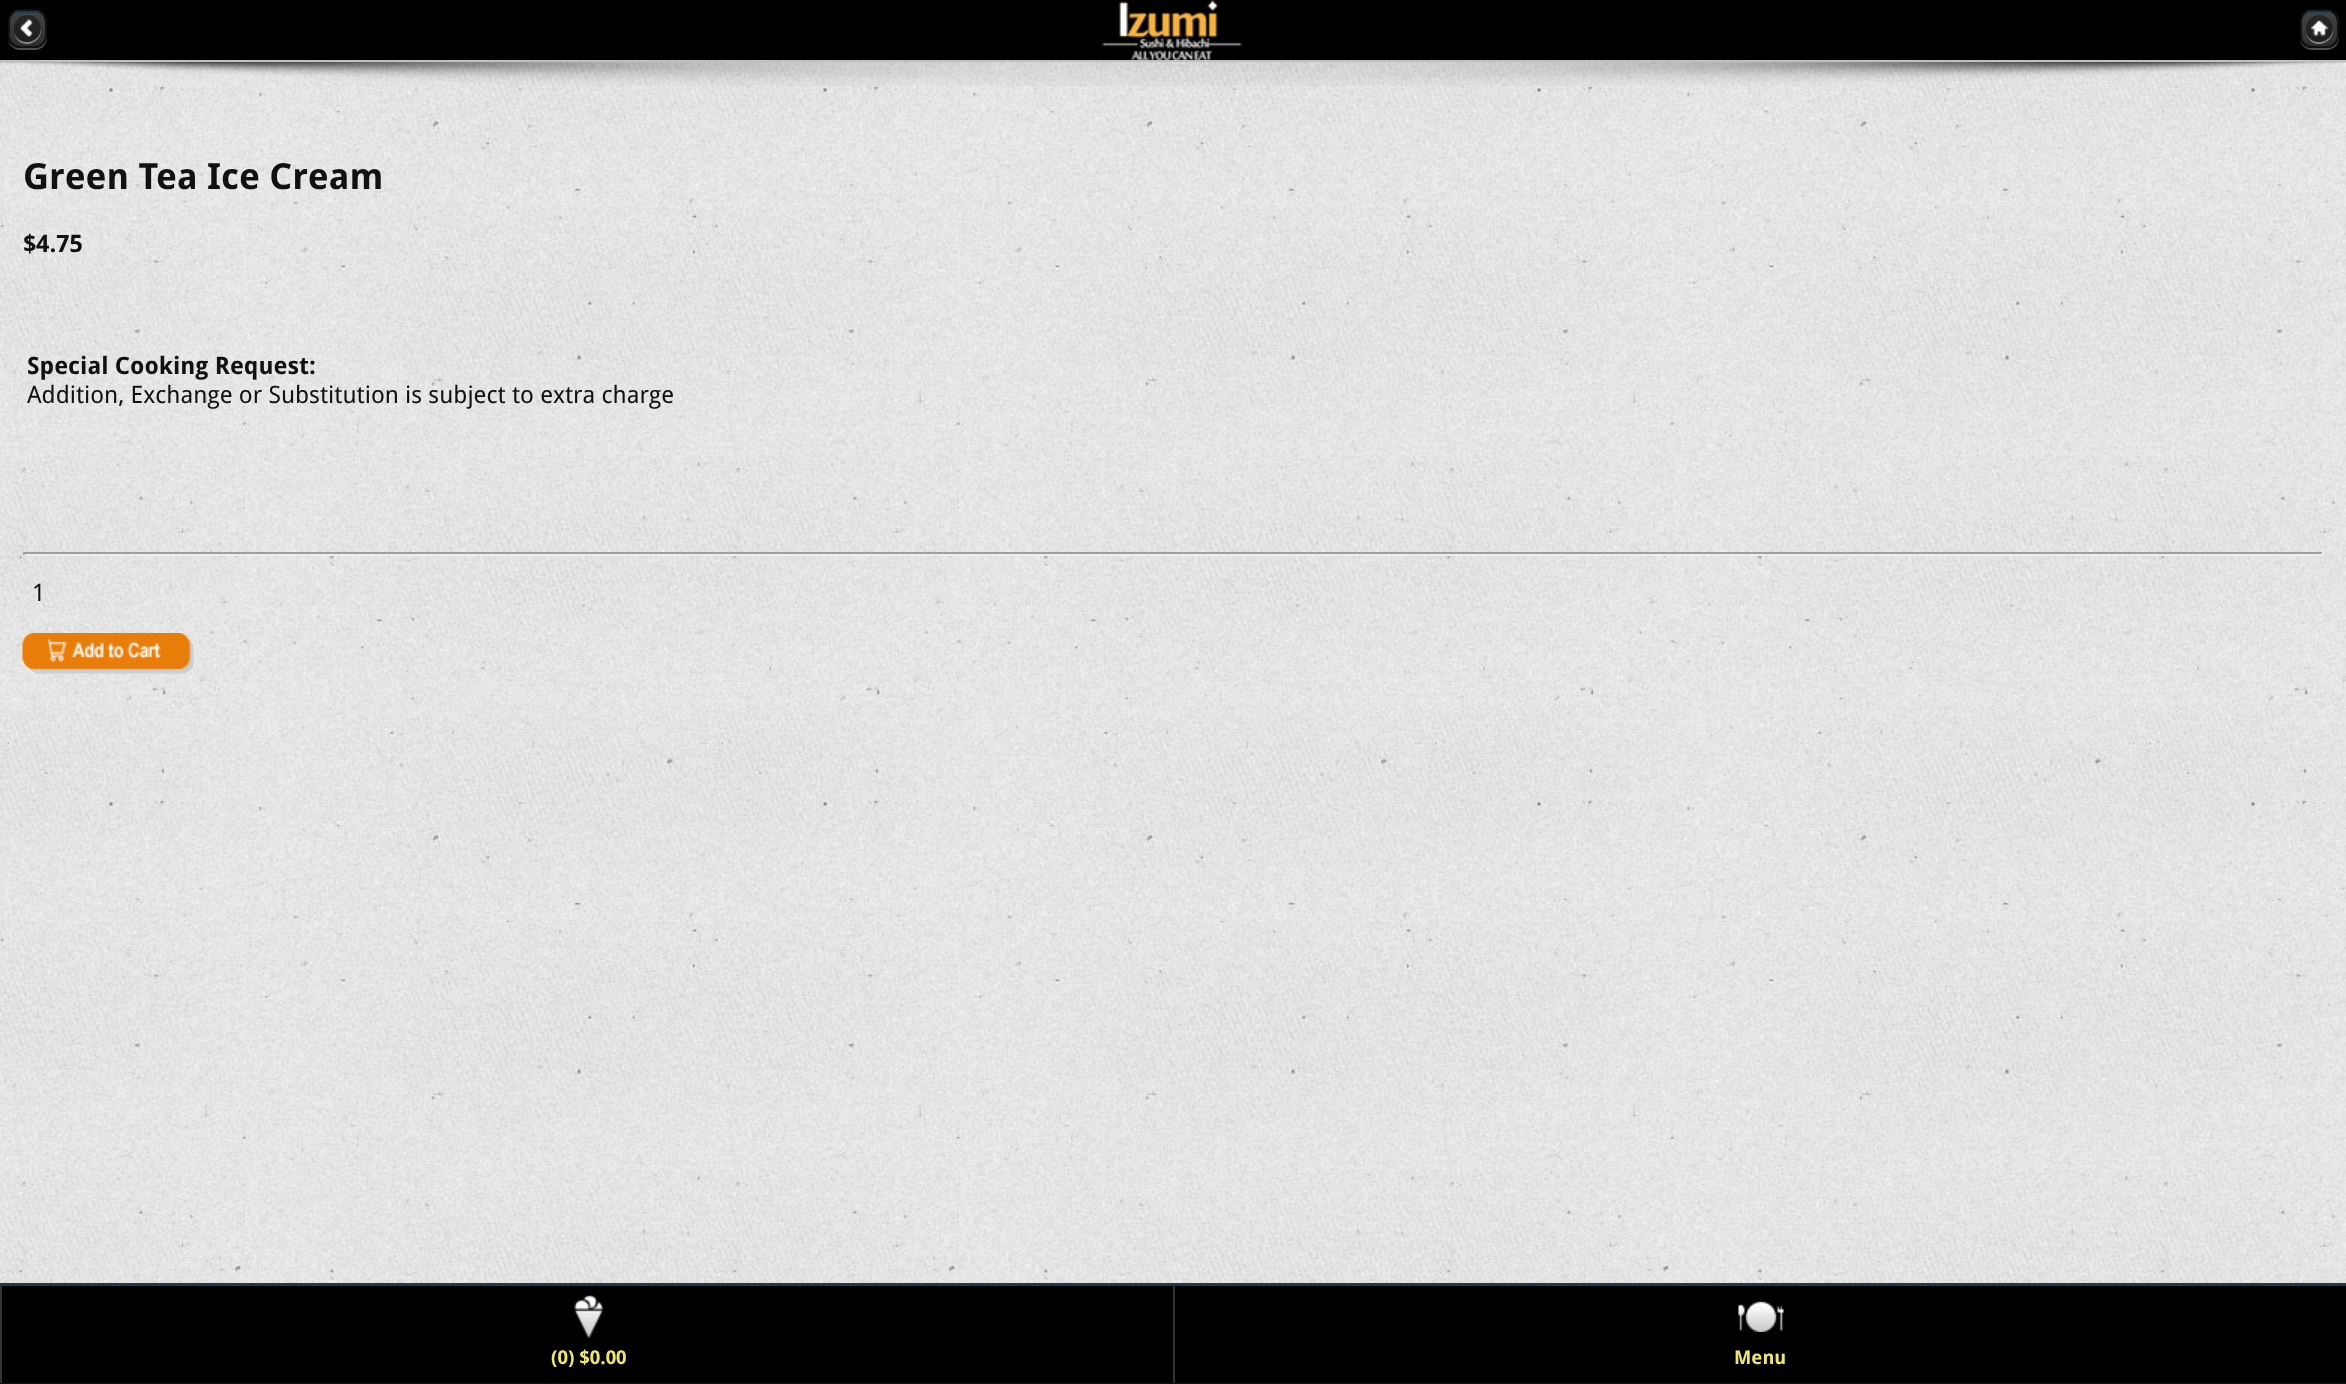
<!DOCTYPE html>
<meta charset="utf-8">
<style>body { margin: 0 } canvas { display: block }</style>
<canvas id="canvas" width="2346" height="1384"></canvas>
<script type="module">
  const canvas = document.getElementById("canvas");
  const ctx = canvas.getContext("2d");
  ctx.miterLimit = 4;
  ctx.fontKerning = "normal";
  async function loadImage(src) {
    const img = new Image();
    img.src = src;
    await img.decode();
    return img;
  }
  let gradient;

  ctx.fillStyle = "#ffffff";
  ctx.fillRect(0, 0, 2346, 1384);
  ctx.drawImage(await loadImage("img1.png"), 0, 62, 2346, 1221);
  ctx.fillStyle = "#000000";
  ctx.fillRect(0, 0, 2346, 60);
  ctx.fillStyle = "#bfc0c0";
  ctx.fillRect(0, 60, 2346, 2);
  ctx.fillStyle = "#4d4d4d";
  ctx.beginPath();
  ctx.moveTo(8, 40);
  ctx.bezierCurveTo(9, 45.5, 14, 50, 20, 50);
  ctx.lineTo(35, 50);
  ctx.bezierCurveTo(41.5, 50, 47, 44.5, 47, 38);
  ctx.lineTo(47, 23);
  ctx.bezierCurveTo(47, 21.5, 47, 20.5, 46.5, 19);
  ctx.lineTo(46.5, 36);
  ctx.bezierCurveTo(46.5, 42.5, 41, 48, 34.5, 48);
  ctx.lineTo(19.5, 48);
  ctx.bezierCurveTo(14, 48, 10, 44.5, 8, 40);
  ctx.closePath();
  ctx.fill();
  gradient = ctx.createLinearGradient(27, 10, 27, 47);
  gradient.addColorStop(0, "#444444");
  gradient.addColorStop(1, "#2d2d2d");
  ctx.fillStyle = gradient;
  ctx.beginPath();
  ctx.roundRect(9, 11, 36, 36, 11);
  ctx.fill();
  ctx.beginPath();
  ctx.roundRect(9, 10, 37, 37, 11);
  ctx.strokeStyle = "#111111";
  ctx.lineWidth = 2;
  ctx.stroke();
  ctx.fillStyle = "#1a3d4f";
  ctx.fillRect(15, 11, 24, 2);
  ctx.fillStyle = "rgba(255, 255, 255, 0.4)";
  ctx.beginPath();
  ctx.moveTo(14, 33);
  ctx.bezierCurveTo(14.5, 36, 16.5, 38.5, 18.5, 41);
  ctx.bezierCurveTo(29, 49.5, 44.5, 39, 40.5, 26);
  ctx.bezierCurveTo(43, 42.5, 19.5, 48.5, 14, 33);
  ctx.closePath();
  ctx.fill();
  ctx.fillStyle = "rgba(0, 0, 0, 0.4)";
  ctx.beginPath();
  ctx.arc(27.5, 28.5, 13.5, 0, Math.PI * 2);
  ctx.fill();
  ctx.drawImage(await loadImage("img2.png"), 19, 19, 14, 19);
  ctx.drawImage(await loadImage("img3.png"), 1102, 0, 141, 60);
  ctx.fillStyle = "#4d4d4d";
  ctx.beginPath();
  ctx.moveTo(2300, 40);
  ctx.bezierCurveTo(2301, 45.5, 2306, 50, 2312, 50);
  ctx.lineTo(2327, 50);
  ctx.bezierCurveTo(2333.5, 50, 2339, 44.5, 2339, 38);
  ctx.lineTo(2339, 23);
  ctx.bezierCurveTo(2339, 21.5, 2339, 20.5, 2338.5, 19);
  ctx.lineTo(2338.5, 36);
  ctx.bezierCurveTo(2338.5, 42.5, 2333, 48, 2326.5, 48);
  ctx.lineTo(2311.5, 48);
  ctx.bezierCurveTo(2306, 48, 2302, 44.5, 2300, 40);
  ctx.closePath();
  ctx.fill();
  gradient = ctx.createLinearGradient(2319, 10, 2319, 47);
  gradient.addColorStop(0, "#444444");
  gradient.addColorStop(1, "#2d2d2d");
  ctx.fillStyle = gradient;
  ctx.beginPath();
  ctx.roundRect(2301, 11, 36, 36, 11);
  ctx.fill();
  ctx.beginPath();
  ctx.roundRect(2301, 10, 37, 37, 11);
  ctx.stroke();
  ctx.fillStyle = "#1a3d4f";
  ctx.fillRect(2307, 11, 24, 2);
  ctx.fillStyle = "rgba(255, 255, 255, 0.4)";
  ctx.beginPath();
  ctx.moveTo(2306, 33);
  ctx.bezierCurveTo(2306.5, 36, 2308.5, 38.5, 2310.5, 41);
  ctx.bezierCurveTo(2321, 49.5, 2336.5, 39, 2332.5, 26);
  ctx.bezierCurveTo(2335, 42.5, 2311.5, 48.5, 2306, 33);
  ctx.closePath();
  ctx.fill();
  ctx.fillStyle = "rgba(0, 0, 0, 0.4)";
  ctx.beginPath();
  ctx.arc(2319.5, 28.5, 13.5, 0, Math.PI * 2);
  ctx.fill();
  ctx.drawImage(await loadImage("img4.png"), 2310, 19, 19, 18);
  ctx.drawImage(await loadImage("img5.png"), 0, 62, 2346, 24);
  ctx.font = "bold 36px Droid Sans";
  ctx.fillStyle = "#111111";
  ctx.fillText("Green Tea Ice Cream", 23, 189);
  ctx.font = "bold 24px Droid Sans";
  ctx.fillText("$4.75", 23, 252);
  ctx.fillText("Special Cooking Request:", 27, 374);
  ctx.font = "24px Droid Sans";
  ctx.fillText("Addition, Exchange or Substitution is subject to extra charge", 27, 403);
  ctx.fillStyle = "#9f9f9f";
  ctx.fillRect(23, 552, 2301, 2);
  ctx.fillStyle = "#eeeeee";
  ctx.fillRect(2322, 552, 2, 3);
  ctx.fillRect(23, 554, 2301, 2);
  ctx.fillStyle = "#9f9f9f";
  ctx.fillRect(23, 552, 2, 3);
  ctx.fillStyle = "#111111";
  ctx.fillText("1", 32, 601);
  ctx.drawImage(await loadImage("img6.png"), 22, 633, 173, 41);
  gradient = ctx.createLinearGradient(1173, 1284, 1173, 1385);
  gradient.addColorStop(0, "#3c3c3c");
  gradient.addColorStop(1, "#111111");
  ctx.fillStyle = gradient;
  ctx.fillRect(0, 1383, 2346, 1);
  ctx.fillStyle = "#333333";
  ctx.fillRect(0, 1283, 2346, 1);
  ctx.fillStyle = "#000000";
  ctx.fillRect(2, 1286, 1171, 97);
  ctx.fillStyle = "#333333";
  ctx.fillRect(0, 1284, 2, 99);
  ctx.fillStyle = "#1a3d4f";
  ctx.fillRect(2, 1284, 1173, 2);
  ctx.drawImage(await loadImage("img7.png"), 574, 1295, 29, 43);
  ctx.font = "bold 19px Droid Sans";
  ctx.fillStyle = "#ede574";
  ctx.fillText("(0) $0.00", 551, 1364);
  ctx.drawImage(await loadImage("img8.png"), 1172, 1284, 1174, 99);
  ctx.fillStyle = "#333333";
  ctx.fillRect(1173, 1284, 2, 99);
  ctx.fillStyle = "#1a3d4f";
  ctx.fillRect(1175, 1284, 1171, 2);
  ctx.drawImage(await loadImage("img9.png"), 1738, 1300, 46, 32);
  ctx.fillStyle = "#ede574";
  ctx.fillText("Menu", 1734, 1364);
</script>
